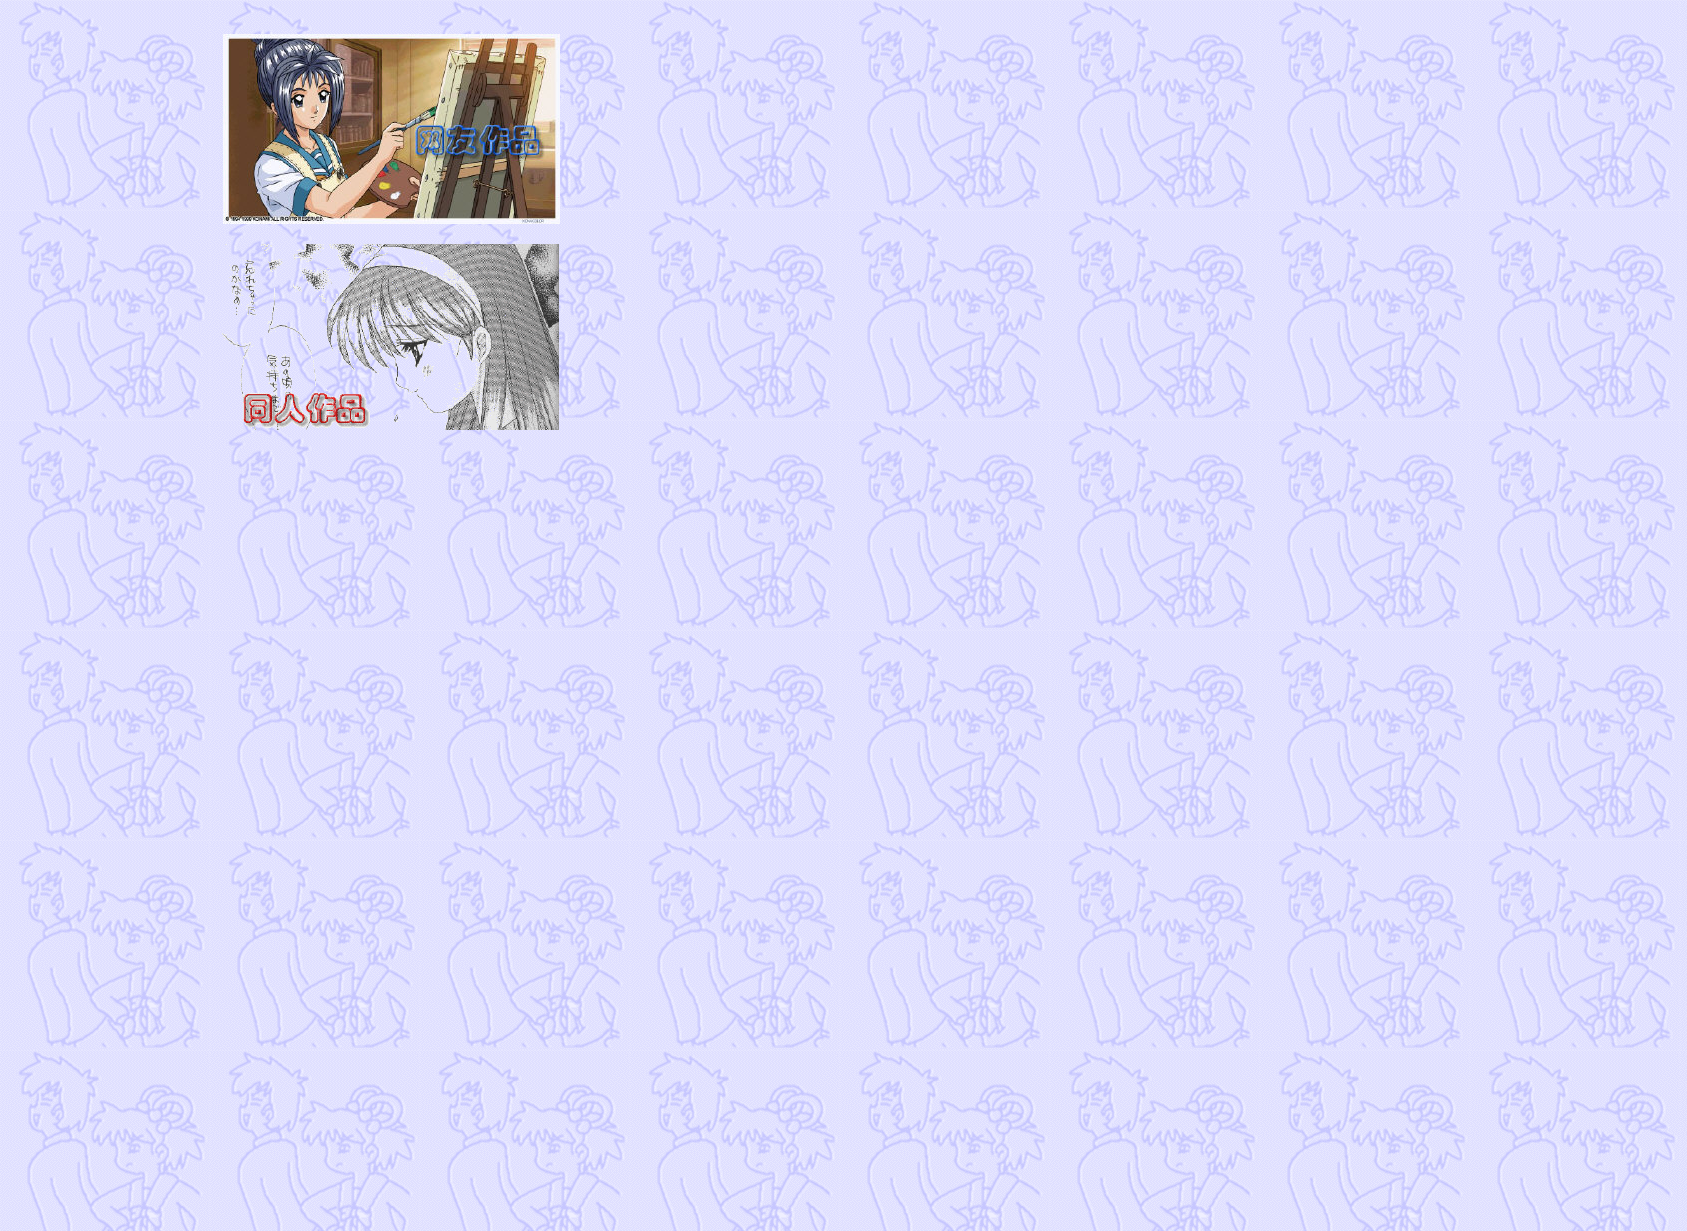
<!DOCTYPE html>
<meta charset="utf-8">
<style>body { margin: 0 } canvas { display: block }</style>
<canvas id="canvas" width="1687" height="1231"></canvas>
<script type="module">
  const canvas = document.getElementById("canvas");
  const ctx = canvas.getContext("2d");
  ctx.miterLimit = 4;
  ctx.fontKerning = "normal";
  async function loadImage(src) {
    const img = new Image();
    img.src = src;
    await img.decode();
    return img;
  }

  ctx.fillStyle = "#ffffff";
  ctx.fillRect(0, 0, 1687, 1231);
  ctx.drawImage(await loadImage("img1.png"), 0, 0, 1687, 1231);
  ctx.drawImage(await loadImage("img2.png"), 223, 34, 337, 190);
  ctx.drawImage(await loadImage("img3.png"), 222, 244, 337, 186);
</script>
